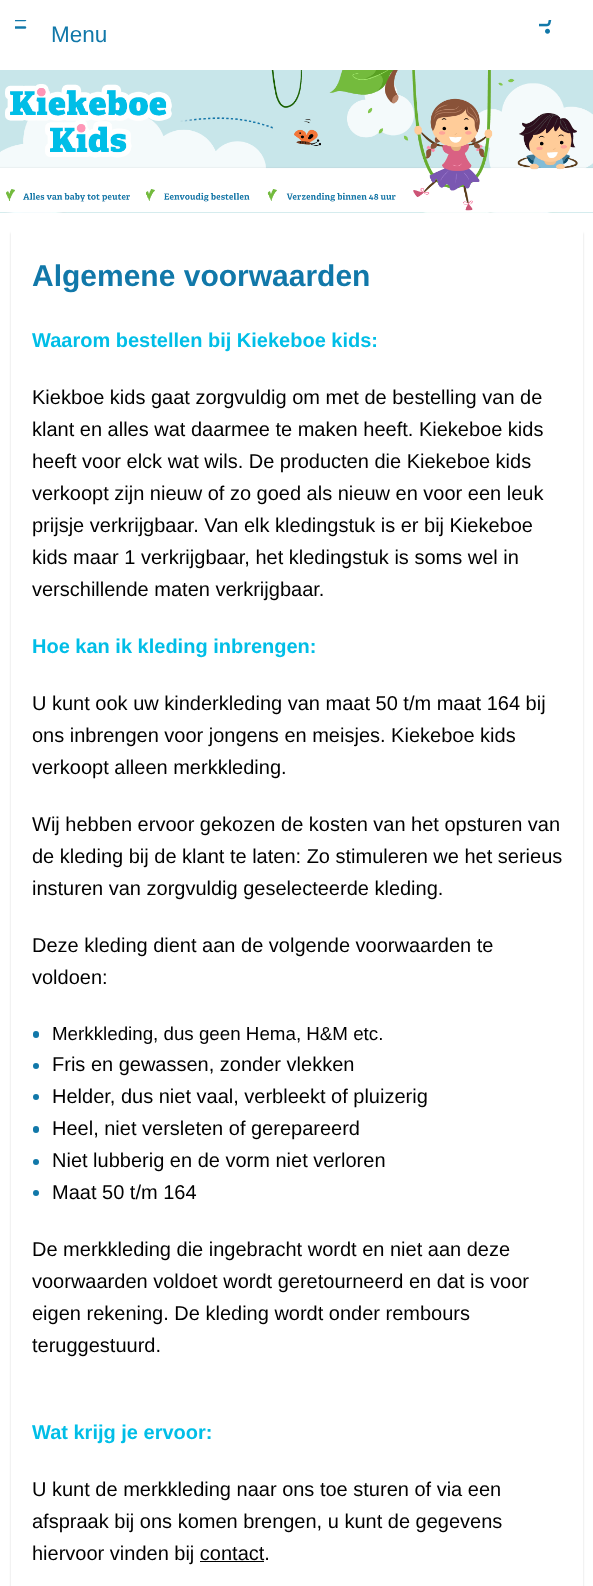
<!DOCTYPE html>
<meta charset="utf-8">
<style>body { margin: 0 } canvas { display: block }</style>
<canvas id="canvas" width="593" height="1586"></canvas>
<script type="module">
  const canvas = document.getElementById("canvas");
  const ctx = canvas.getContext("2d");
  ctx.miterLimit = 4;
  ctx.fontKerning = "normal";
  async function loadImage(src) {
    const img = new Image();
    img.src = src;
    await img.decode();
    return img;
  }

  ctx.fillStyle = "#ffffff";
  ctx.fillRect(0, 0, 593, 1586);
  ctx.drawImage(await loadImage("img1.png"), 15, 20, 12, 9);
  ctx.font = "22.5px Liberation Sans";
  ctx.fillStyle = "#1178a9";
  ctx.fillText("Menu", 51, 42);
  ctx.drawImage(await loadImage("img2.png"), 539, 20, 13, 14);
  ctx.drawImage(await loadImage("img3.png"), 0, 212, 593, 1);
  ctx.drawImage(await loadImage("img4.png"), 0, 70, 593, 143);
  ctx.save();
  ctx.beginPath();
  ctx.moveTo(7, 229);
  ctx.lineTo(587, 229);
  ctx.lineTo(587, 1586);
  ctx.lineTo(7, 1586);
  ctx.closePath();
  ctx.moveTo(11, 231);
  ctx.lineTo(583, 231);
  ctx.lineTo(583, 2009);
  ctx.lineTo(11, 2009);
  ctx.closePath();
  ctx.clip("evenodd");
  ctx.fillStyle = "rgba(0, 0, 0, 0.15)";
  ctx.filter = "blur(1px)";
  ctx.beginPath();
  ctx.rect(11, 233, 572, 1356);
  ctx.fill();
  ctx.filter = "none";
  ctx.restore();
  ctx.strokeStyle = "#ffffff";
  ctx.strokeRect(11.5, 231.5, 571, 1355);
  ctx.font = "bold 30px Liberation Sans";
  ctx.fillText("Algemene voorwaarden", 32, 286);
  ctx.font = "bold 20px Liberation Sans";
  ctx.fillStyle = "#00bee7";
  ctx.fillText("Waarom bestellen bij Kiekeboe kids:", 32, 347);
  ctx.font = "20px Liberation Sans";
  ctx.fillStyle = "#000000";
  ctx.fillText("Kiekboe kids gaat zorgvuldig om met de bestelling van de", 32, 404);
  ctx.fillText("klant en alles wat daarmee te maken heeft. Kiekeboe kids", 32, 436);
  ctx.fillText("heeft voor elck wat wils. De producten die Kiekeboe kids", 32, 468);
  ctx.fillText("verkoopt zijn nieuw of zo goed als nieuw en voor een leuk", 32, 500);
  ctx.fillText("prijsje verkrijgbaar. Van elk kledingstuk is er bij Kiekeboe", 32, 532);
  ctx.fillText("kids maar 1 verkrijgbaar, het kledingstuk is soms wel in", 32, 564);
  ctx.fillText("verschillende maten verkrijgbaar.", 32, 596);
  ctx.font = "bold 20px Liberation Sans";
  ctx.fillStyle = "#00bee7";
  ctx.fillText("Hoe kan ik kleding inbrengen:", 32, 653);
  ctx.font = "20px Liberation Sans";
  ctx.fillStyle = "#000000";
  ctx.fillText("U kunt ook uw kinderkleding van maat 50 t/m maat 164 bij", 32, 710);
  ctx.fillText("ons inbrengen voor jongens en meisjes. Kiekeboe kids", 32, 742);
  ctx.fillText("verkoopt alleen merkkleding.", 32, 774);
  ctx.fillText("Wij hebben ervoor gekozen de kosten van het opsturen van", 32, 831);
  ctx.fillText("de kleding bij de klant te laten: Zo stimuleren we het serieus", 32, 863);
  ctx.fillText("insturen van zorgvuldig geselecteerde kleding.", 32, 895);
  ctx.fillText("Deze kleding dient aan de volgende voorwaarden te", 32, 952);
  ctx.fillText("voldoen:", 32, 984);
  ctx.fillStyle = "#1178a9";
  ctx.beginPath();
  ctx.roundRect(33, 1031, 6, 7, 3);
  ctx.fill();
  ctx.font = "18.75px Liberation Sans";
  ctx.fillStyle = "#000000";
  ctx.fillText("Merkkleding, dus geen Hema, H&M etc.", 52, 1040);
  ctx.fillStyle = "#1178a9";
  ctx.beginPath();
  ctx.arc(36, 1066, 3, 0, Math.PI * 2);
  ctx.fill();
  ctx.font = "20px Liberation Sans";
  ctx.fillStyle = "#000000";
  ctx.fillText("Fris en gewassen, zonder vlekken", 52, 1071);
  ctx.fillStyle = "#1178a9";
  ctx.beginPath();
  ctx.arc(36, 1097, 3, 0, Math.PI * 2);
  ctx.fill();
  ctx.fillStyle = "#000000";
  ctx.fillText("Helder, dus niet vaal, verbleekt of pluizerig", 52, 1103);
  ctx.fillStyle = "#1178a9";
  ctx.beginPath();
  ctx.roundRect(33, 1126, 6, 7, 3);
  ctx.fill();
  ctx.fillStyle = "#000000";
  ctx.fillText("Heel, niet versleten of gerepareerd", 52, 1135);
  ctx.fillStyle = "#1178a9";
  ctx.beginPath();
  ctx.arc(36, 1162, 3, 0, Math.PI * 2);
  ctx.fill();
  ctx.fillStyle = "#000000";
  ctx.fillText("Niet lubberig en de vorm niet verloren", 52, 1167);
  ctx.fillStyle = "#1178a9";
  ctx.beginPath();
  ctx.arc(36, 1193, 3, 0, Math.PI * 2);
  ctx.fill();
  ctx.fillStyle = "#000000";
  ctx.fillText("Maat 50 t/m 164", 52, 1199);
  ctx.fillText("De merkkleding die ingebracht wordt en niet aan deze", 32, 1256);
  ctx.fillText("voorwaarden voldoet wordt geretourneerd en dat is voor", 32, 1288);
  ctx.fillText("eigen rekening. De kleding wordt onder rembours", 32, 1320);
  ctx.fillText("teruggestuurd.", 32, 1352);
  ctx.font = "bold 20px Liberation Sans";
  ctx.fillStyle = "#00bee7";
  ctx.fillText("Wat krijg je ervoor:", 32, 1439);
  ctx.font = "20px Liberation Sans";
  ctx.fillStyle = "#000000";
  ctx.fillText("U kunt de merkkleding naar ons toe sturen of via een", 32, 1496);
  ctx.fillText("afspraak bij ons komen brengen, u kunt de gegevens", 32, 1528);
  ctx.fillText("hiervoor vinden bij contact.", 32, 1560);
  ctx.fillRect(200, 1561, 64, 1);
</script>
